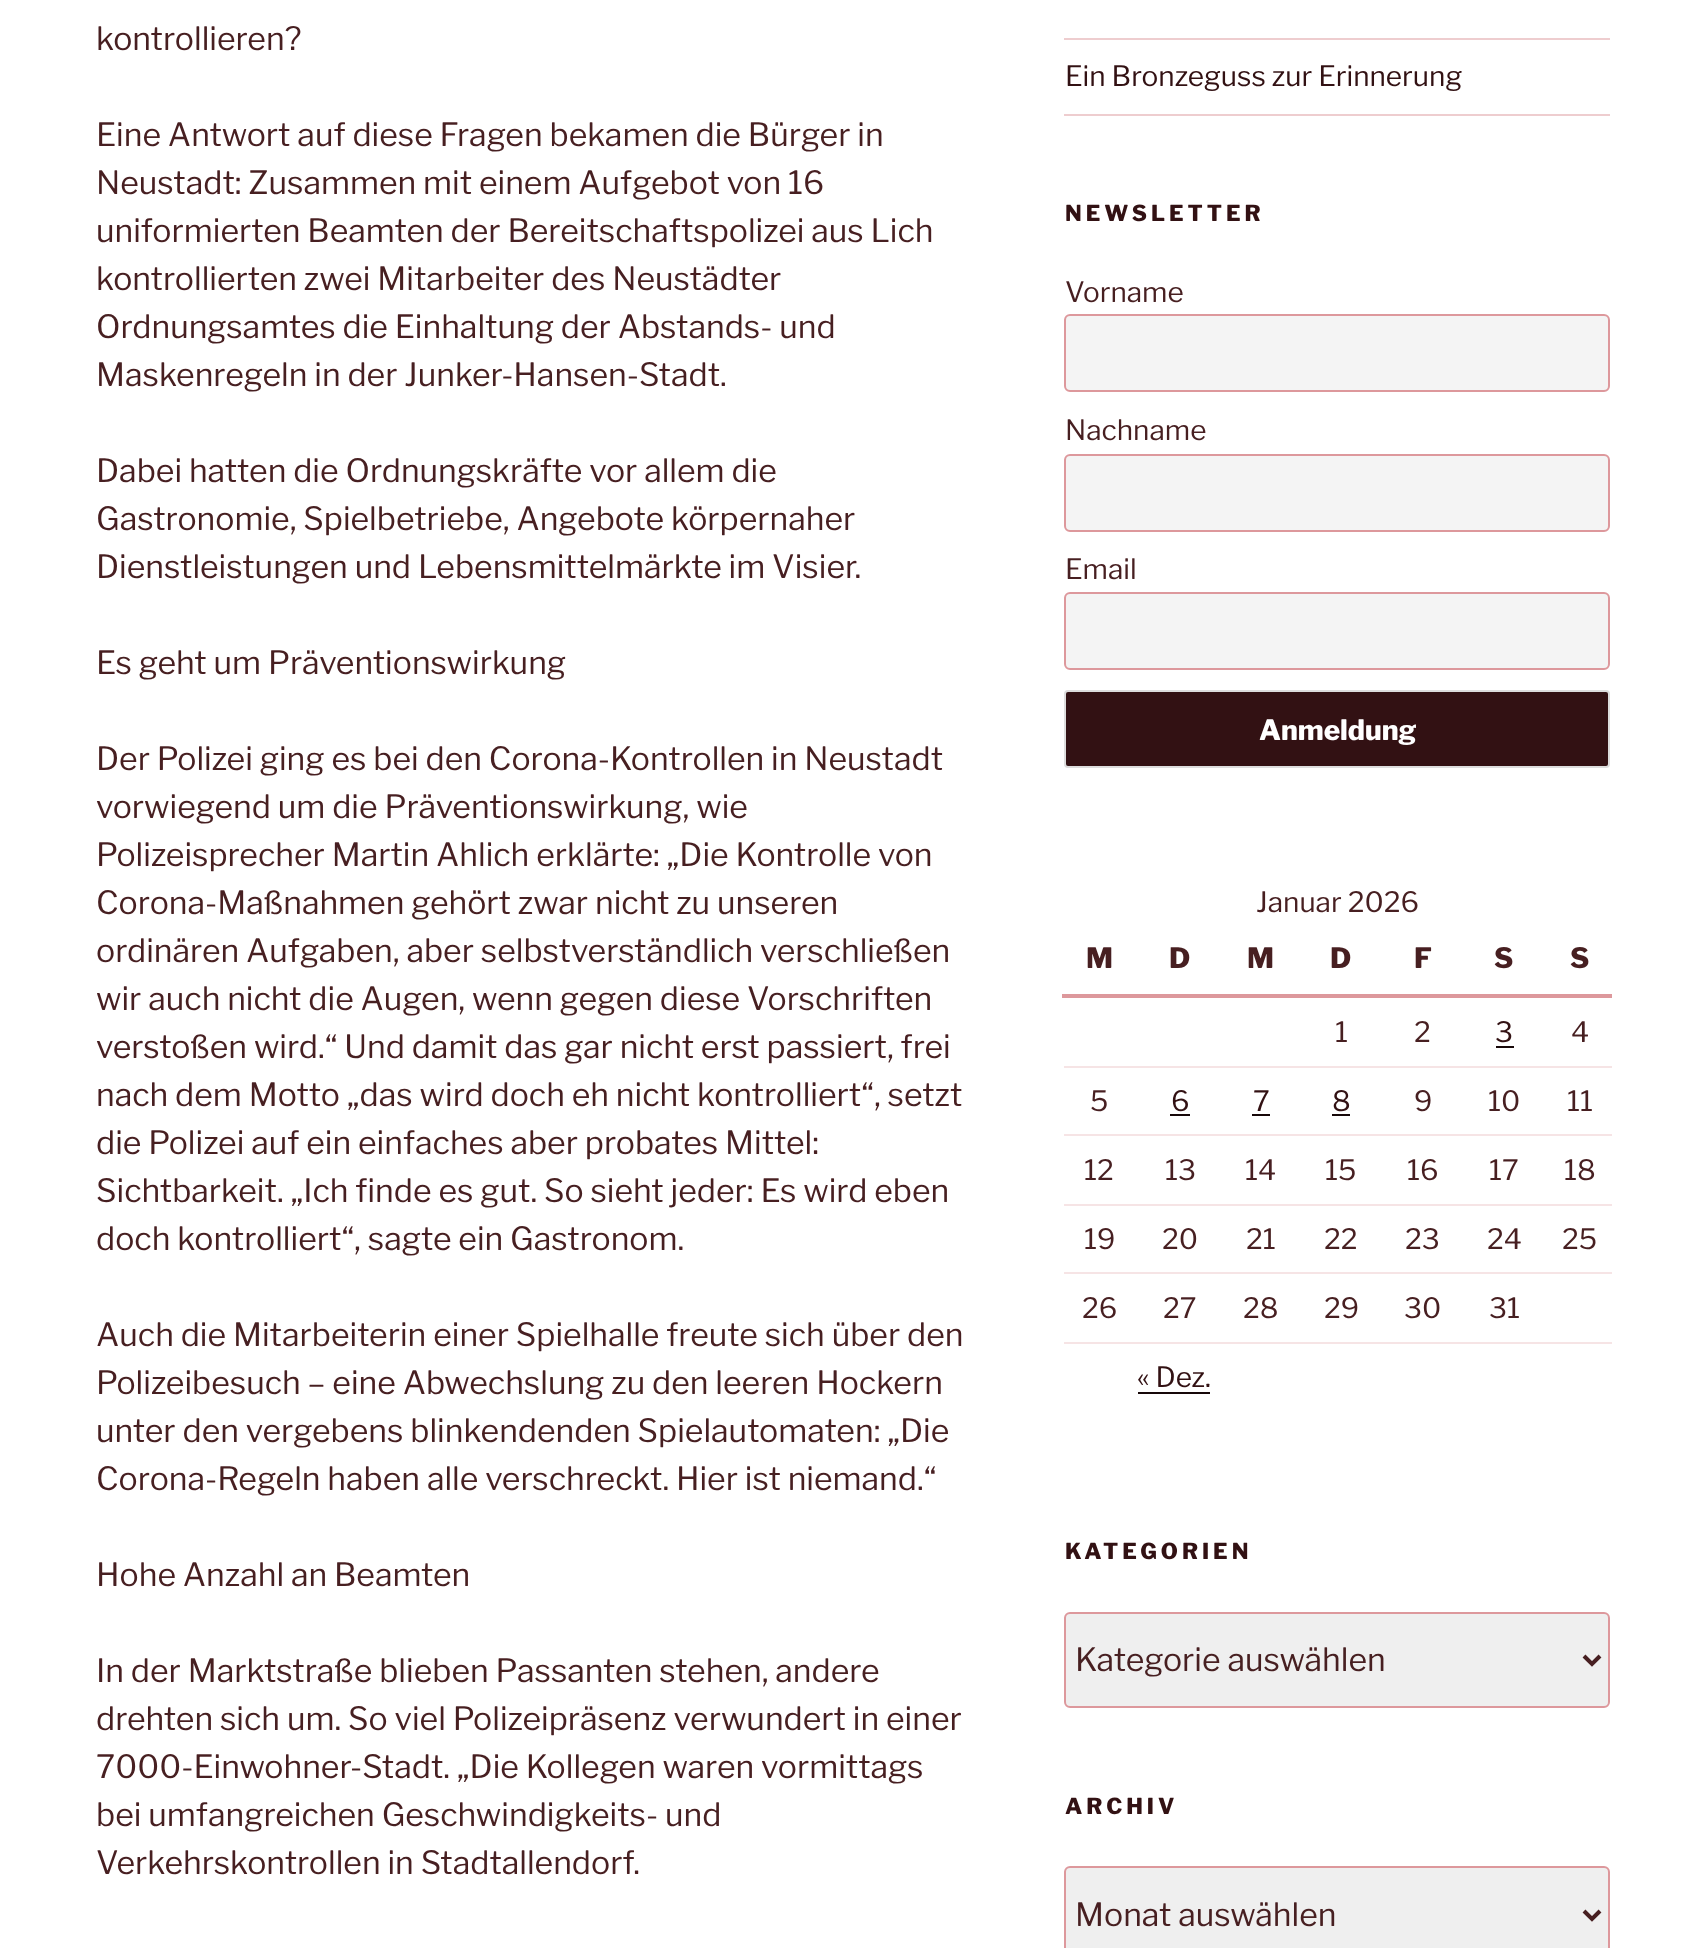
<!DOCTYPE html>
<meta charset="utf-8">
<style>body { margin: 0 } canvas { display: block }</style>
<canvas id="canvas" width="1706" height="1948"></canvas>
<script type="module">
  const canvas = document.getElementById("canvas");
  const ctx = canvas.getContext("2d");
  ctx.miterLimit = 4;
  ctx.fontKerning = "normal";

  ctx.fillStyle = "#ffffff";
  ctx.fillRect(0, 0, 1706, 1948);
  ctx.font = "32px Libre Franklin";
  ctx.fillStyle = "#471f21";
  ctx.fillText("kontrollieren?", 96, 50);
  ctx.fillText("Eine Antwort auf diese Fragen bekamen die Bürger in", 96, 146);
  ctx.fillText("Neustadt: Zusammen mit einem Aufgebot von 16", 96, 194);
  ctx.fillText("uniformierten Beamten der Bereitschaftspolizei aus Lich", 96, 242);
  ctx.fillText("kontrollierten zwei Mitarbeiter des Neustädter", 96, 290);
  ctx.fillText("Ordnungsamtes die Einhaltung der Abstands- und", 96, 338);
  ctx.fillText("Maskenregeln in der Junker-Hansen-Stadt.", 96, 386);
  ctx.fillText("Dabei hatten die Ordnungskräfte vor allem die", 96, 482);
  ctx.fillText("Gastronomie, Spielbetriebe, Angebote körpernaher", 96, 530);
  ctx.fillText("Dienstleistungen und Lebensmittelmärkte im Visier.", 96, 578);
  ctx.fillText("Es geht um Präventionswirkung", 96, 674);
  ctx.fillText("Der Polizei ging es bei den Corona-Kontrollen in Neustadt", 96, 770);
  ctx.fillText("vorwiegend um die Präventionswirkung, wie", 96, 818);
  ctx.fillText("Polizeisprecher Martin Ahlich erklärte: „Die Kontrolle von", 96, 866);
  ctx.fillText("Corona-Maßnahmen gehört zwar nicht zu unseren", 96, 914);
  ctx.fillText("ordinären Aufgaben, aber selbstverständlich verschließen", 96, 962);
  ctx.fillText("wir auch nicht die Augen, wenn gegen diese Vorschriften", 96, 1010);
  ctx.fillText("verstoßen wird.“ Und damit das gar nicht erst passiert, frei", 96, 1058);
  ctx.fillText("nach dem Motto „das wird doch eh nicht kontrolliert“, setzt", 96, 1106);
  ctx.fillText("die Polizei auf ein einfaches aber probates Mittel:", 96, 1154);
  ctx.fillText("Sichtbarkeit. „Ich finde es gut. So sieht jeder: Es wird eben", 96, 1202);
  ctx.fillText("doch kontrolliert“, sagte ein Gastronom.", 96, 1250);
  ctx.fillText("Auch die Mitarbeiterin einer Spielhalle freute sich über den", 96, 1346);
  ctx.fillText("Polizeibesuch – eine Abwechslung zu den leeren Hockern", 96, 1394);
  ctx.fillText("unter den vergebens blinkendenden Spielautomaten: „Die", 96, 1442);
  ctx.fillText("Corona-Regeln haben alle verschreckt. Hier ist niemand.“", 96, 1490);
  ctx.fillText("Hohe Anzahl an Beamten", 96, 1586);
  ctx.fillText("In der Marktstraße blieben Passanten stehen, andere", 96, 1682);
  ctx.fillText("drehten sich um. So viel Polizeipräsenz verwundert in einer", 96, 1730);
  ctx.fillText("7000-Einwohner-Stadt. „Die Kollegen waren vormittags", 96, 1778);
  ctx.fillText("bei umfangreichen Geschwindigkeits- und", 96, 1826);
  ctx.fillText("Verkehrskontrollen in Stadtallendorf.", 96, 1874);
  ctx.fillStyle = "#eecdcf";
  ctx.fillRect(1064, 38, 546, 2);
  ctx.fillRect(1064, 114, 546, 2);
  ctx.font = "28px Libre Franklin";
  ctx.fillStyle = "#321113";
  ctx.fillText("Ein Bronzeguss zur Erinnerung", 1065, 86);
  ctx.letterSpacing = "4px";
  ctx.font = "800 22px Libre Franklin";
  ctx.fillText("NEWSLETTER", 1065, 221);
  ctx.letterSpacing = "0px";
  ctx.font = "28px Libre Franklin";
  ctx.fillStyle = "#471f21";
  ctx.fillText("Vorname", 1065, 302);
  ctx.fillStyle = "#f4f4f4";
  ctx.beginPath();
  ctx.roundRect(1065, 315, 544, 76, 5);
  ctx.fill();
  ctx.strokeStyle = "#dd989c";
  ctx.lineWidth = 2;
  ctx.stroke();
  ctx.fillStyle = "#471f21";
  ctx.fillText("Nachname", 1065, 440);
  ctx.fillStyle = "#f4f4f4";
  ctx.beginPath();
  ctx.roundRect(1065, 455, 544, 76, 5);
  ctx.fill();
  ctx.stroke();
  ctx.fillStyle = "#471f21";
  ctx.fillText("Email", 1065, 579);
  ctx.fillStyle = "#f4f4f4";
  ctx.beginPath();
  ctx.roundRect(1065, 593, 544, 76, 5);
  ctx.fill();
  ctx.stroke();
  ctx.fillStyle = "#321113";
  ctx.beginPath();
  ctx.roundRect(1065, 691, 544, 76, 3);
  ctx.fill();
  ctx.strokeStyle = "#dddddd";
  ctx.stroke();
  ctx.font = "800 28px Libre Franklin";
  ctx.fillStyle = "#ffffff";
  ctx.fillText("Anmeldung", 1259, 740);
  ctx.font = "28px Libre Franklin";
  ctx.fillStyle = "#471f21";
  ctx.fillText("Januar 2026", 1256, 912);
  ctx.font = "800 28px Libre Franklin";
  ctx.fillText("M", 1086, 968);
  ctx.fillText("D", 1169, 968);
  ctx.fillText("M", 1247, 968);
  ctx.fillText("D", 1330, 968);
  ctx.fillText("F", 1414, 968);
  ctx.fillText("S", 1494, 968);
  ctx.fillStyle = "#dd989c";
  ctx.fillRect(1062, 994, 550, 4);
  ctx.fillStyle = "#471f21";
  ctx.fillText("S", 1570, 968);
  ctx.fillStyle = "#f6e4e5";
  ctx.fillRect(1064, 1066, 548, 2);
  ctx.font = "28px Libre Franklin";
  ctx.fillStyle = "#471f21";
  ctx.fillText("1", 1335, 1042);
  ctx.fillText("2", 1414, 1042);
  ctx.fillStyle = "#321113";
  ctx.fillText("3", 1495, 1042);
  ctx.fillStyle = "#170809";
  ctx.fillRect(1496, 1046, 18, 2);
  ctx.fillStyle = "#471f21";
  ctx.fillText("4", 1571, 1042);
  ctx.fillStyle = "#f6e4e5";
  ctx.fillRect(1064, 1134, 548, 2);
  ctx.fillStyle = "#471f21";
  ctx.fillText("5", 1090, 1111);
  ctx.fillStyle = "#321113";
  ctx.fillText("6", 1171, 1111);
  ctx.fillStyle = "#170809";
  ctx.fillRect(1170, 1114, 20, 2);
  ctx.fillStyle = "#321113";
  ctx.fillText("7", 1253, 1111);
  ctx.fillStyle = "#170809";
  ctx.fillRect(1252, 1114, 18, 2);
  ctx.fillStyle = "#321113";
  ctx.fillText("8", 1332, 1111);
  ctx.fillStyle = "#170809";
  ctx.fillRect(1332, 1114, 18, 2);
  ctx.fillStyle = "#471f21";
  ctx.fillText("9", 1414, 1111);
  ctx.fillText("10", 1488, 1111);
  ctx.fillText("11", 1567, 1111);
  ctx.fillStyle = "#f6e4e5";
  ctx.fillRect(1064, 1204, 548, 2);
  ctx.fillStyle = "#471f21";
  ctx.fillText("12", 1084, 1180);
  ctx.fillText("13", 1165, 1180);
  ctx.fillText("14", 1245, 1180);
  ctx.fillText("15", 1325, 1180);
  ctx.fillText("16", 1407, 1180);
  ctx.fillText("17", 1489, 1180);
  ctx.fillText("18", 1564, 1180);
  ctx.fillStyle = "#f6e4e5";
  ctx.fillRect(1064, 1272, 548, 2);
  ctx.fillStyle = "#471f21";
  ctx.fillText("19", 1084, 1249);
  ctx.fillText("20", 1162, 1249);
  ctx.fillText("21", 1246, 1249);
  ctx.fillText("22", 1324, 1249);
  ctx.fillText("23", 1405, 1249);
  ctx.fillText("24", 1487, 1249);
  ctx.fillText("25", 1562, 1249);
  ctx.fillStyle = "#f6e4e5";
  ctx.fillRect(1064, 1342, 548, 2);
  ctx.fillStyle = "#471f21";
  ctx.fillText("26", 1082, 1318);
  ctx.fillText("27", 1163, 1318);
  ctx.fillText("28", 1243, 1318);
  ctx.fillText("29", 1324, 1318);
  ctx.fillText("30", 1404, 1318);
  ctx.fillText("31", 1489, 1318);
  ctx.fillStyle = "#321113";
  ctx.fillText("« Dez.", 1137, 1387);
  ctx.fillStyle = "#170809";
  ctx.fillRect(1138, 1392, 72, 2);
  ctx.letterSpacing = "4px";
  ctx.font = "800 22px Libre Franklin";
  ctx.fillStyle = "#321113";
  ctx.fillText("KATEGORIEN", 1065, 1559);
  ctx.fillStyle = "#efefef";
  ctx.beginPath();
  ctx.roundRect(1065, 1613, 544, 94, 5);
  ctx.fill();
  ctx.strokeStyle = "#dd989c";
  ctx.stroke();
  ctx.beginPath();
  ctx.moveTo(1584, 1656);
  ctx.lineTo(1592, 1664);
  ctx.lineTo(1600, 1656);
  ctx.strokeStyle = "#471f21";
  ctx.lineWidth = 4;
  ctx.stroke();
  ctx.letterSpacing = "0px";
  ctx.font = "32px Libre Franklin";
  ctx.fillStyle = "#471f21";
  ctx.fillText("Kategorie auswählen", 1075, 1671);
  ctx.letterSpacing = "4px";
  ctx.font = "800 22px Libre Franklin";
  ctx.fillStyle = "#321113";
  ctx.fillText("ARCHIV", 1065, 1814);
  ctx.fillStyle = "#efefef";
  ctx.beginPath();
  ctx.roundRect(1065, 1867, 544, 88, 5);
  ctx.fill();
  ctx.strokeStyle = "#dd989c";
  ctx.lineWidth = 2;
  ctx.stroke();
  ctx.beginPath();
  ctx.moveTo(1584, 1911);
  ctx.lineTo(1592, 1919);
  ctx.lineTo(1600, 1911);
  ctx.strokeStyle = "#471f21";
  ctx.lineWidth = 4;
  ctx.stroke();
  ctx.letterSpacing = "0px";
  ctx.font = "32px Libre Franklin";
  ctx.fillStyle = "#471f21";
  ctx.fillText("Monat auswählen", 1075, 1926);
</script>
